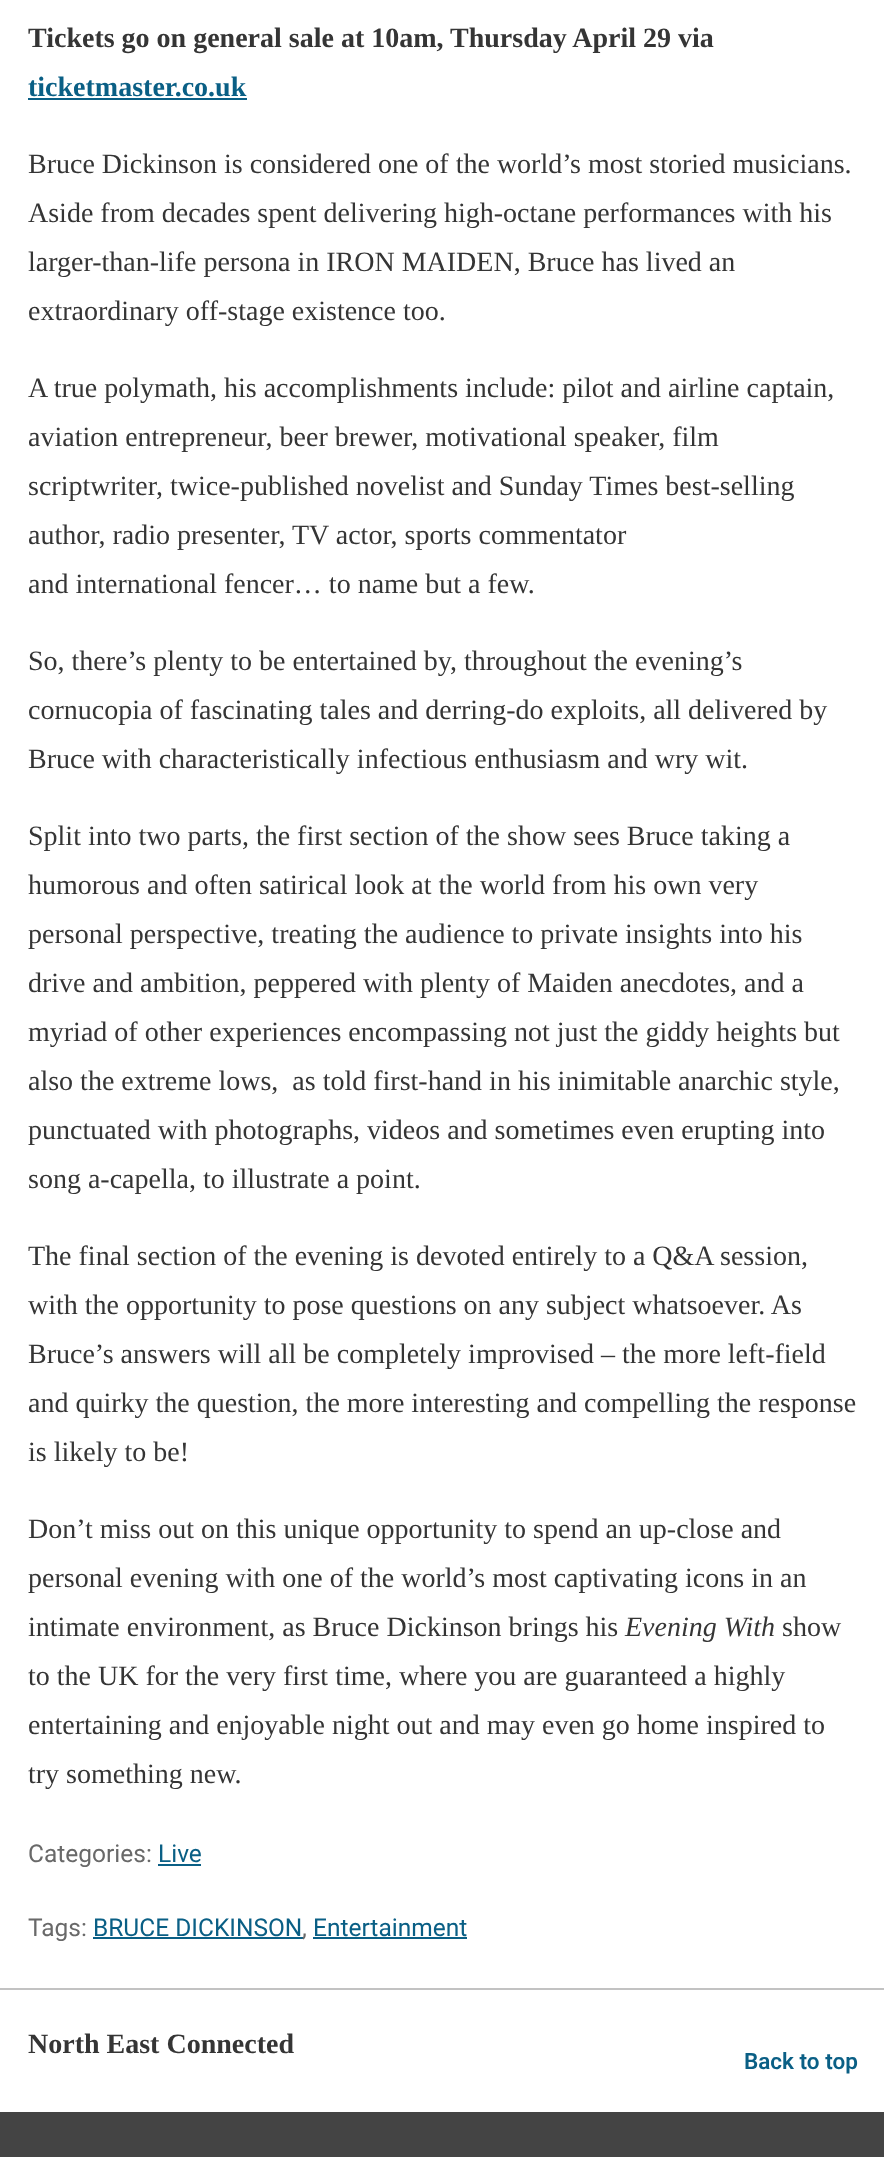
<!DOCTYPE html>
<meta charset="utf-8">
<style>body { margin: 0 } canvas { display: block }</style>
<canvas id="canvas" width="884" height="2157"></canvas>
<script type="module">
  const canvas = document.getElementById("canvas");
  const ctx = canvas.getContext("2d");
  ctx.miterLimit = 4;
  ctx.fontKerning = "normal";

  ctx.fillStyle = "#ffffff";
  ctx.fillRect(0, 0, 884, 2157);
  ctx.font = "bold 28px Liberation Serif";
  ctx.fillStyle = "#353535";
  ctx.fillText("Tickets go on general sale at 10am, Thursday April 29 via", 28, 47);
  ctx.fillStyle = "#0a5f85";
  ctx.fillText("ticketmaster.co.uk", 28, 96);
  ctx.fillRect(28, 98, 219, 2);
  ctx.font = "28px Liberation Serif";
  ctx.fillStyle = "#353535";
  ctx.fillText("Bruce Dickinson is considered one of the world’s most storied musicians.", 28, 173);
  ctx.fillText("Aside from decades spent delivering high-octane performances with his", 28, 222);
  ctx.fillText("larger-than-life persona in IRON MAIDEN, Bruce has lived an", 28, 271);
  ctx.fillText("extraordinary off-stage existence too.", 28, 320);
  ctx.fillText("A true polymath, his accomplishments include: pilot and airline captain,", 28, 397);
  ctx.fillText("aviation entrepreneur, beer brewer, motivational speaker, film", 28, 446);
  ctx.fillText("scriptwriter, twice-published novelist and Sunday Times best-selling", 28, 495);
  ctx.fillText("author, radio presenter, TV actor, sports commentator", 28, 544);
  ctx.fillText("and international fencer… to name but a few.", 28, 593);
  ctx.fillText("So, there’s plenty to be entertained by, throughout the evening’s", 28, 670);
  ctx.fillText("cornucopia of fascinating tales and derring-do exploits, all delivered by", 28, 719);
  ctx.fillText("Bruce with characteristically infectious enthusiasm and wry wit.", 28, 768);
  ctx.fillText("Split into two parts, the first section of the show sees Bruce taking a", 28, 845);
  ctx.fillText("humorous and often satirical look at the world from his own very", 28, 894);
  ctx.fillText("personal perspective, treating the audience to private insights into his", 28, 943);
  ctx.fillText("drive and ambition, peppered with plenty of Maiden anecdotes, and a", 28, 992);
  ctx.fillText("myriad of other experiences encompassing not just the giddy heights but", 28, 1041);
  ctx.fillText("also the extreme lows,  as told first-hand in his inimitable anarchic style,", 28, 1090);
  ctx.fillText("punctuated with photographs, videos and sometimes even erupting into", 28, 1139);
  ctx.fillText("song a-capella, to illustrate a point.", 28, 1188);
  ctx.fillText("The final section of the evening is devoted entirely to a Q&A session,", 28, 1265);
  ctx.fillText("with the opportunity to pose questions on any subject whatsoever. As", 28, 1314);
  ctx.fillText("Bruce’s answers will all be completely improvised – the more left-field", 28, 1363);
  ctx.fillText("and quirky the question, the more interesting and compelling the response", 28, 1412);
  ctx.fillText("is likely to be!", 28, 1461);
  ctx.fillText("Don’t miss out on this unique opportunity to spend an up-close and", 28, 1538);
  ctx.fillText("personal evening with one of the world’s most captivating icons in an", 28, 1587);
  ctx.fillText("intimate environment, as Bruce Dickinson brings his", 28, 1636);
  ctx.font = "italic 28px Liberation Serif";
  ctx.fillText("Evening With", 625, 1636);
  ctx.font = "28px Liberation Serif";
  ctx.fillText("show", 782, 1636);
  ctx.fillText("to the UK for the very first time, where you are guaranteed a highly", 28, 1685);
  ctx.fillText("entertaining and enjoyable night out and may even go home inspired to", 28, 1734);
  ctx.fillText("try something new.", 28, 1783);
  ctx.font = "24.5px Roboto";
  ctx.fillStyle = "#696969";
  ctx.fillText("Categories:", 28, 1862);
  ctx.fillStyle = "#0a5f85";
  ctx.fillText("Live", 158, 1862);
  ctx.fillRect(158, 1864, 43, 2);
  ctx.fillStyle = "#696969";
  ctx.fillText("Tags:", 28, 1936);
  ctx.fillStyle = "#0a5f85";
  ctx.fillText("BRUCE DICKINSON", 93, 1936);
  ctx.fillRect(93, 1937, 210, 2);
  ctx.fillStyle = "#696969";
  ctx.fillText(",", 302, 1936);
  ctx.fillStyle = "#0a5f85";
  ctx.fillText("Entertainment", 313, 1936);
  ctx.fillRect(313, 1937, 154, 2);
  ctx.fillStyle = "#c2c2c2";
  ctx.fillRect(0, 1988, 884, 2);
  ctx.font = "bold 28px Liberation Serif";
  ctx.fillStyle = "#353535";
  ctx.fillText("North East Connected", 28, 2053);
  ctx.font = "600 22.5px Roboto";
  ctx.fillStyle = "#0a5f85";
  ctx.fillText("Back to top", 744, 2069);
  ctx.fillStyle = "#444444";
  ctx.fillRect(0, 2112, 884, 45);
</script>
